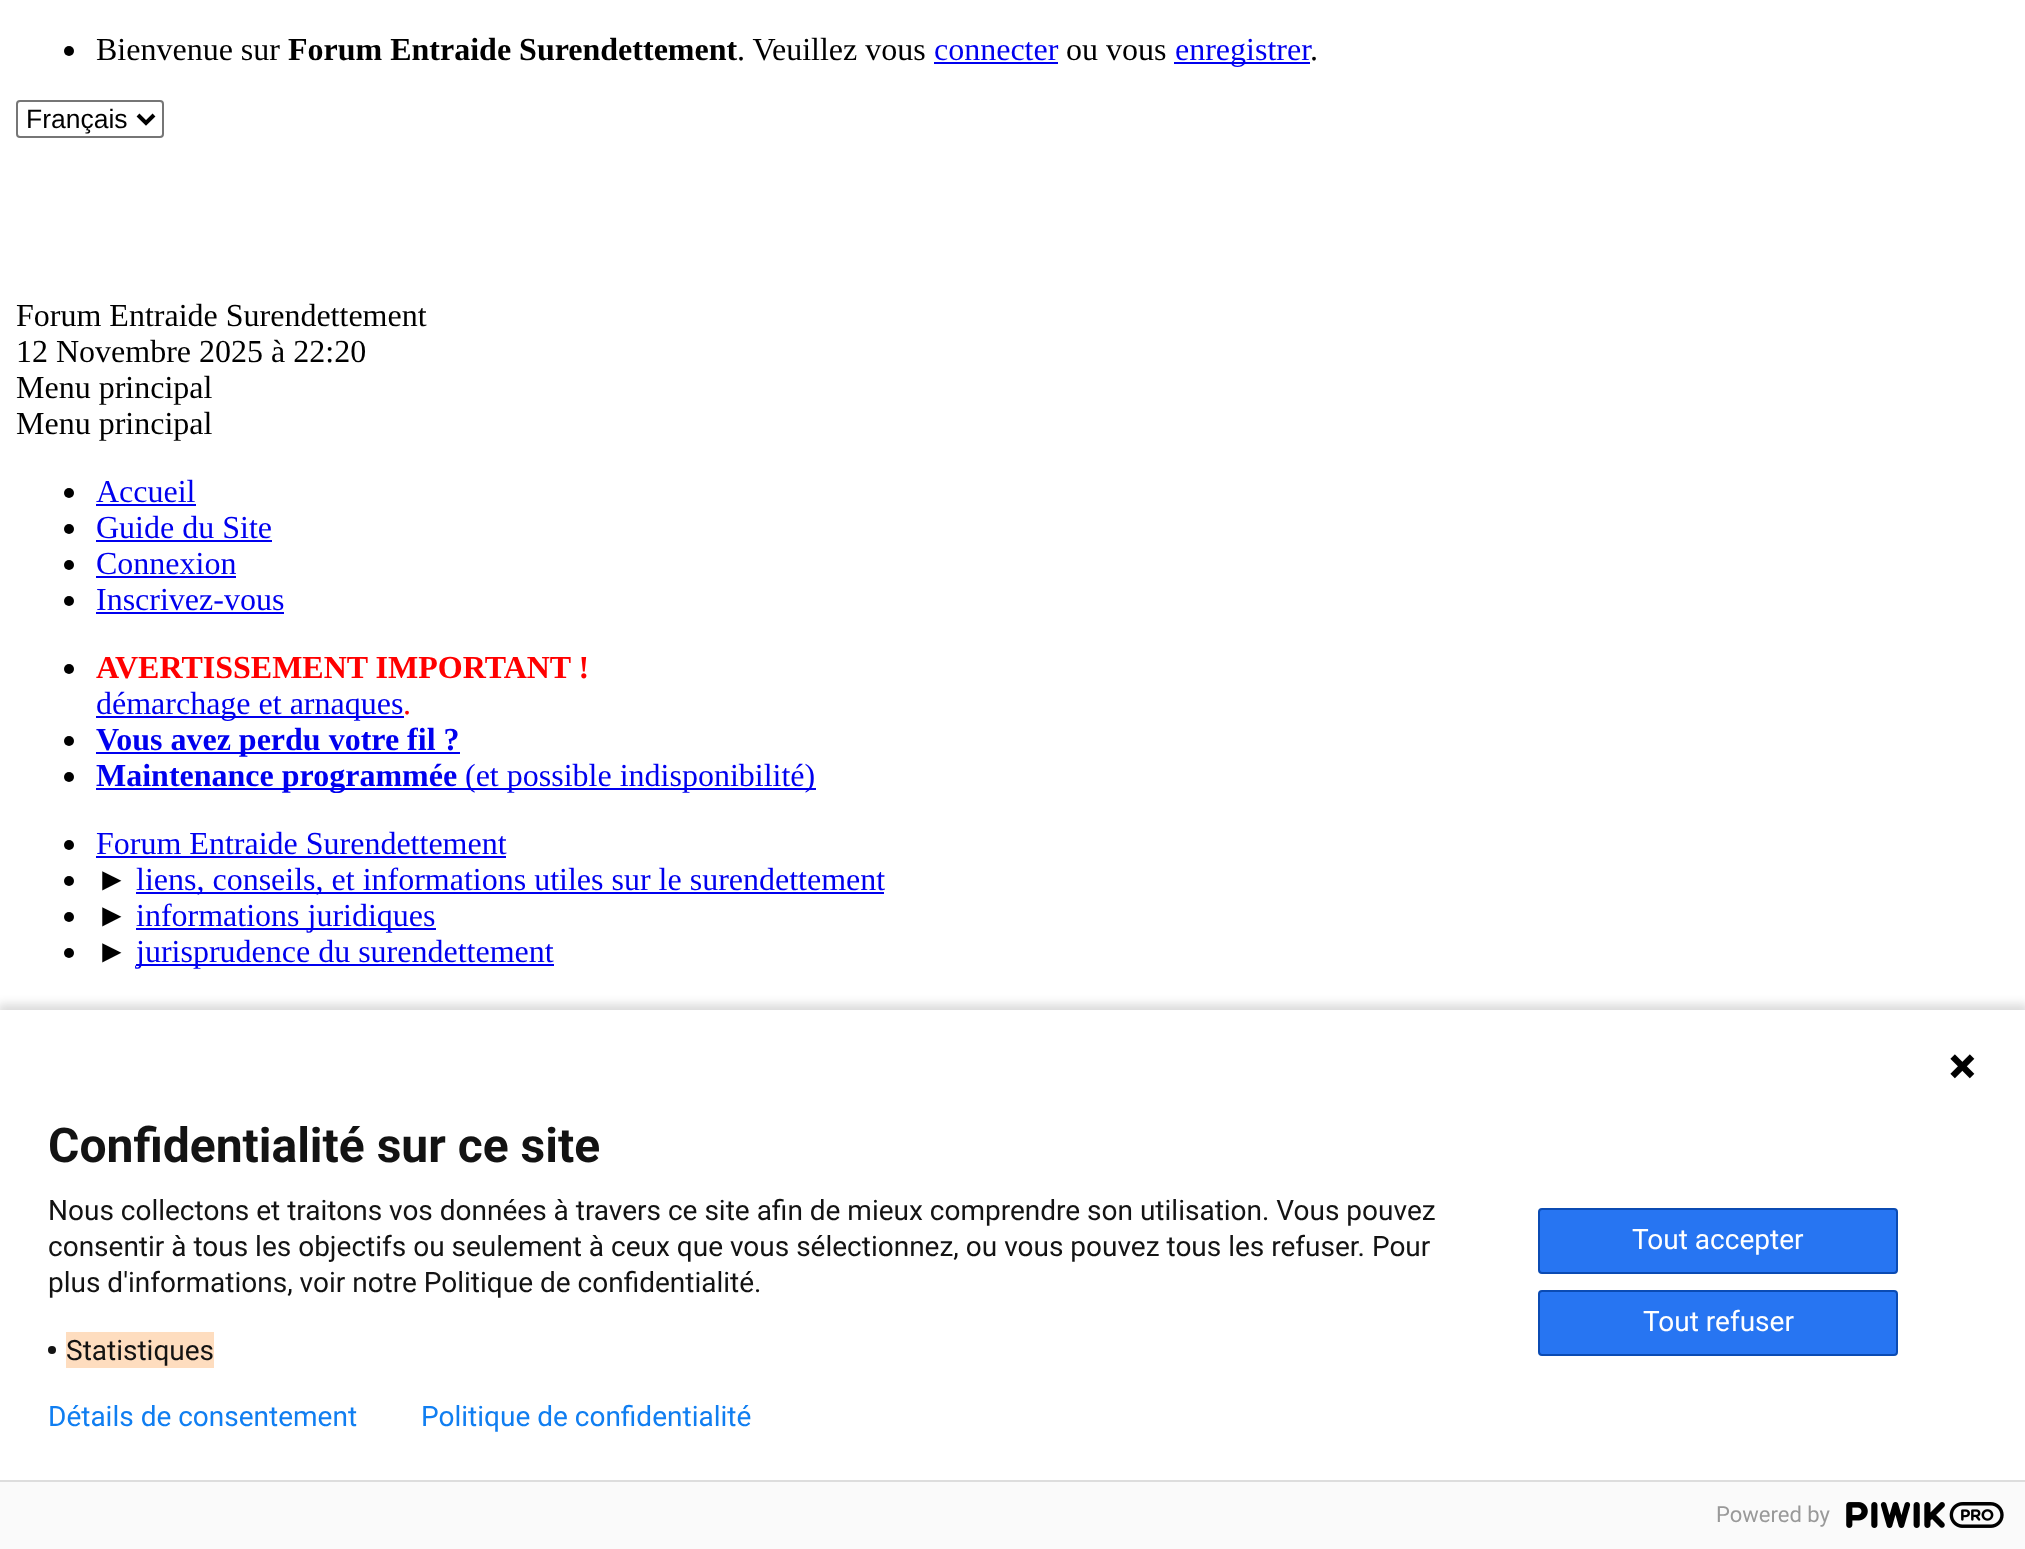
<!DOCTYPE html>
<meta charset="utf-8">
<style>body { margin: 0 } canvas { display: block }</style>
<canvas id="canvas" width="2025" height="1549"></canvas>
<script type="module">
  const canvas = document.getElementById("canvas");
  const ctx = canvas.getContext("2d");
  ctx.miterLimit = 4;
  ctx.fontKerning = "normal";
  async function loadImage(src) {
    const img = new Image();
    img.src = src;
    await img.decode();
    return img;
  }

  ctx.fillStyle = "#ffffff";
  ctx.fillRect(0, 0, 2025, 1549);
  ctx.fillStyle = "#000000";
  ctx.beginPath();
  ctx.arc(69, 51, 5, 0, Math.PI * 2);
  ctx.fill();
  ctx.font = "32px Liberation Serif";
  ctx.fillText("Bienvenue sur", 96, 60);
  ctx.font = "bold 32px Liberation Serif";
  ctx.fillText("Forum Entraide Surendettement", 288, 60);
  ctx.font = "32px Liberation Serif";
  ctx.fillText(". Veuillez vous", 737, 60);
  ctx.fillStyle = "#0000ee";
  ctx.fillText("connecter", 934, 60);
  ctx.fillRect(934, 62, 124, 2);
  ctx.fillStyle = "#000000";
  ctx.fillText("ou vous", 1066, 60);
  ctx.fillStyle = "#0000ee";
  ctx.fillRect(1174, 62, 136, 2);
  ctx.fillText("enregistrer", 1175, 60);
  ctx.fillStyle = "#000000";
  ctx.fillText(".", 1310, 60);
  ctx.beginPath();
  ctx.roundRect(17, 101, 146, 36, 3);
  ctx.strokeStyle = "#767676";
  ctx.lineWidth = 2;
  ctx.stroke();
  ctx.beginPath();
  ctx.moveTo(138, 115);
  ctx.lineTo(146, 123);
  ctx.lineTo(154, 115);
  ctx.strokeStyle = "#000000";
  ctx.lineWidth = 4;
  ctx.stroke();
  ctx.font = "26.5px Liberation Sans";
  ctx.fillText("Français", 26, 128);
  ctx.font = "32px Liberation Serif";
  ctx.fillText("Forum Entraide Surendettement", 16, 326);
  ctx.fillText("12 Novembre 2025 à 22:20", 16, 362);
  ctx.fillText("Menu principal", 16, 398);
  ctx.fillText("Menu principal", 16, 434);
  ctx.beginPath();
  ctx.arc(69, 493, 5, 0, Math.PI * 2);
  ctx.fill();
  ctx.fillStyle = "#0000ee";
  ctx.fillText("Accueil", 96, 502);
  ctx.fillRect(96, 504, 100, 2);
  ctx.fillStyle = "#000000";
  ctx.beginPath();
  ctx.arc(69, 529, 5, 0, Math.PI * 2);
  ctx.fill();
  ctx.fillStyle = "#0000ee";
  ctx.fillText("Guide du Site", 96, 538);
  ctx.fillRect(96, 540, 176, 2);
  ctx.fillStyle = "#000000";
  ctx.beginPath();
  ctx.arc(69, 565, 5, 0, Math.PI * 2);
  ctx.fill();
  ctx.fillStyle = "#0000ee";
  ctx.fillText("Connexion", 96, 574);
  ctx.fillRect(96, 576, 140, 2);
  ctx.fillStyle = "#000000";
  ctx.beginPath();
  ctx.arc(69, 601, 5, 0, Math.PI * 2);
  ctx.fill();
  ctx.fillStyle = "#0000ee";
  ctx.fillText("Inscrivez-vous", 96, 610);
  ctx.fillRect(96, 612, 188, 2);
  ctx.fillStyle = "#000000";
  ctx.beginPath();
  ctx.arc(69, 669, 5, 0, Math.PI * 2);
  ctx.fill();
  ctx.font = "bold 32px Liberation Serif";
  ctx.fillStyle = "#ff0000";
  ctx.fillText("AVERTISSEMENT IMPORTANT !", 96, 678);
  ctx.fillStyle = "#0000ee";
  ctx.fillRect(96, 716, 308, 2);
  ctx.font = "32px Liberation Serif";
  ctx.fillText("démarchage et arnaques", 96, 714);
  ctx.fillStyle = "#ff0000";
  ctx.fillText(".", 403, 714);
  ctx.fillStyle = "#000000";
  ctx.beginPath();
  ctx.arc(69, 741, 5, 0, Math.PI * 2);
  ctx.fill();
  ctx.fillStyle = "#0000ee";
  ctx.fillRect(96, 752, 364, 2);
  ctx.font = "bold 32px Liberation Serif";
  ctx.fillText("Vous avez perdu votre fil ?", 96, 750);
  ctx.fillStyle = "#000000";
  ctx.beginPath();
  ctx.arc(69, 777, 5, 0, Math.PI * 2);
  ctx.fill();
  ctx.fillStyle = "#0000ee";
  ctx.fillRect(96, 788, 720, 2);
  ctx.fillText("Maintenance programmée", 96, 786);
  ctx.font = "32px Liberation Serif";
  ctx.fillText("(et possible indisponibilité)", 465, 786);
  ctx.fillStyle = "#000000";
  ctx.beginPath();
  ctx.arc(69, 845, 5, 0, Math.PI * 2);
  ctx.fill();
  ctx.fillStyle = "#0000ee";
  ctx.fillText("Forum Entraide Surendettement", 96, 854);
  ctx.fillRect(96, 856, 410, 2);
  ctx.fillStyle = "#000000";
  ctx.beginPath();
  ctx.arc(69, 881, 5, 0, Math.PI * 2);
  ctx.fill();
  ctx.fillText("►", 96, 890);
  ctx.fillStyle = "#0000ee";
  ctx.fillRect(136, 892, 748, 2);
  ctx.fillText("liens, conseils, et informations utiles sur le surendettement", 136, 890);
  ctx.fillStyle = "#000000";
  ctx.beginPath();
  ctx.arc(69, 917, 5, 0, Math.PI * 2);
  ctx.fill();
  ctx.fillText("►", 96, 926);
  ctx.fillStyle = "#0000ee";
  ctx.fillRect(136, 928, 300, 2);
  ctx.fillText("informations juridiques", 136, 926);
  ctx.fillStyle = "#000000";
  ctx.beginPath();
  ctx.arc(69, 953, 5, 0, Math.PI * 2);
  ctx.fill();
  ctx.fillText("►", 96, 962);
  ctx.fillStyle = "#0000ee";
  ctx.fillRect(136, 964, 418, 2);
  ctx.fillText("jurisprudence du surendettement", 136, 962);
  ctx.fillStyle = "rgba(0, 0, 0, 0.14)";
  ctx.filter = "blur(5px)";
  ctx.beginPath();
  ctx.rect(-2, 1004, 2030, 544);
  ctx.fill();
  ctx.filter = "none";
  ctx.fillStyle = "#ffffff";
  ctx.fillRect(0, 1010, 2025, 470);
  ctx.drawImage(await loadImage("img1.png"), 1950, 1054, 25, 25);
  ctx.font = "bold 48px Roboto";
  ctx.fillStyle = "#131313";
  ctx.fillText("Confidentialité sur ce site", 48, 1162);
  ctx.font = "28px Roboto";
  ctx.fillText("Nous collectons et traitons vos données à travers ce site afin de mieux comprendre son utilisation. Vous pouvez", 48, 1220);
  ctx.fillText("consentir à tous les objectifs ou seulement à ceux que vous sélectionnez, ou vous pouvez tous les refuser. Pour", 48, 1256);
  ctx.fillText("plus d'informations, voir notre Politique de confidentialité.", 48, 1292);
  ctx.beginPath();
  ctx.arc(52, 1350, 4, 0, Math.PI * 2);
  ctx.fill();
  ctx.fillStyle = "#feddbf";
  ctx.fillRect(66, 1332, 148, 36);
  ctx.fillStyle = "#131313";
  ctx.fillText("Statistiques", 66, 1360);
  ctx.fillStyle = "#2775f2";
  ctx.beginPath();
  ctx.roundRect(1539, 1209, 358, 64, 3);
  ctx.fill();
  ctx.strokeStyle = "#0b4bb3";
  ctx.lineWidth = 2;
  ctx.stroke();
  ctx.fillStyle = "#ffffff";
  ctx.fillText("Tout accepter", 1632, 1249);
  ctx.fillStyle = "#2775f2";
  ctx.beginPath();
  ctx.roundRect(1539, 1291, 358, 64, 3);
  ctx.fill();
  ctx.stroke();
  ctx.fillStyle = "#ffffff";
  ctx.fillText("Tout refuser", 1643, 1331);
  ctx.fillStyle = "#107ef1";
  ctx.fillText("Détails de consentement", 48, 1426);
  ctx.fillText("Politique de confidentialité", 421, 1426);
  ctx.fillStyle = "#fafafa";
  ctx.fillRect(0, 1482, 2025, 67);
  ctx.fillStyle = "#dddddd";
  ctx.fillRect(0, 1480, 2025, 2);
  ctx.font = "22px Roboto";
  ctx.fillStyle = "#999999";
  ctx.fillText("Powered by", 1716, 1522);
  ctx.drawImage(await loadImage("img2.png"), 1846, 1502, 158, 26);
</script>
